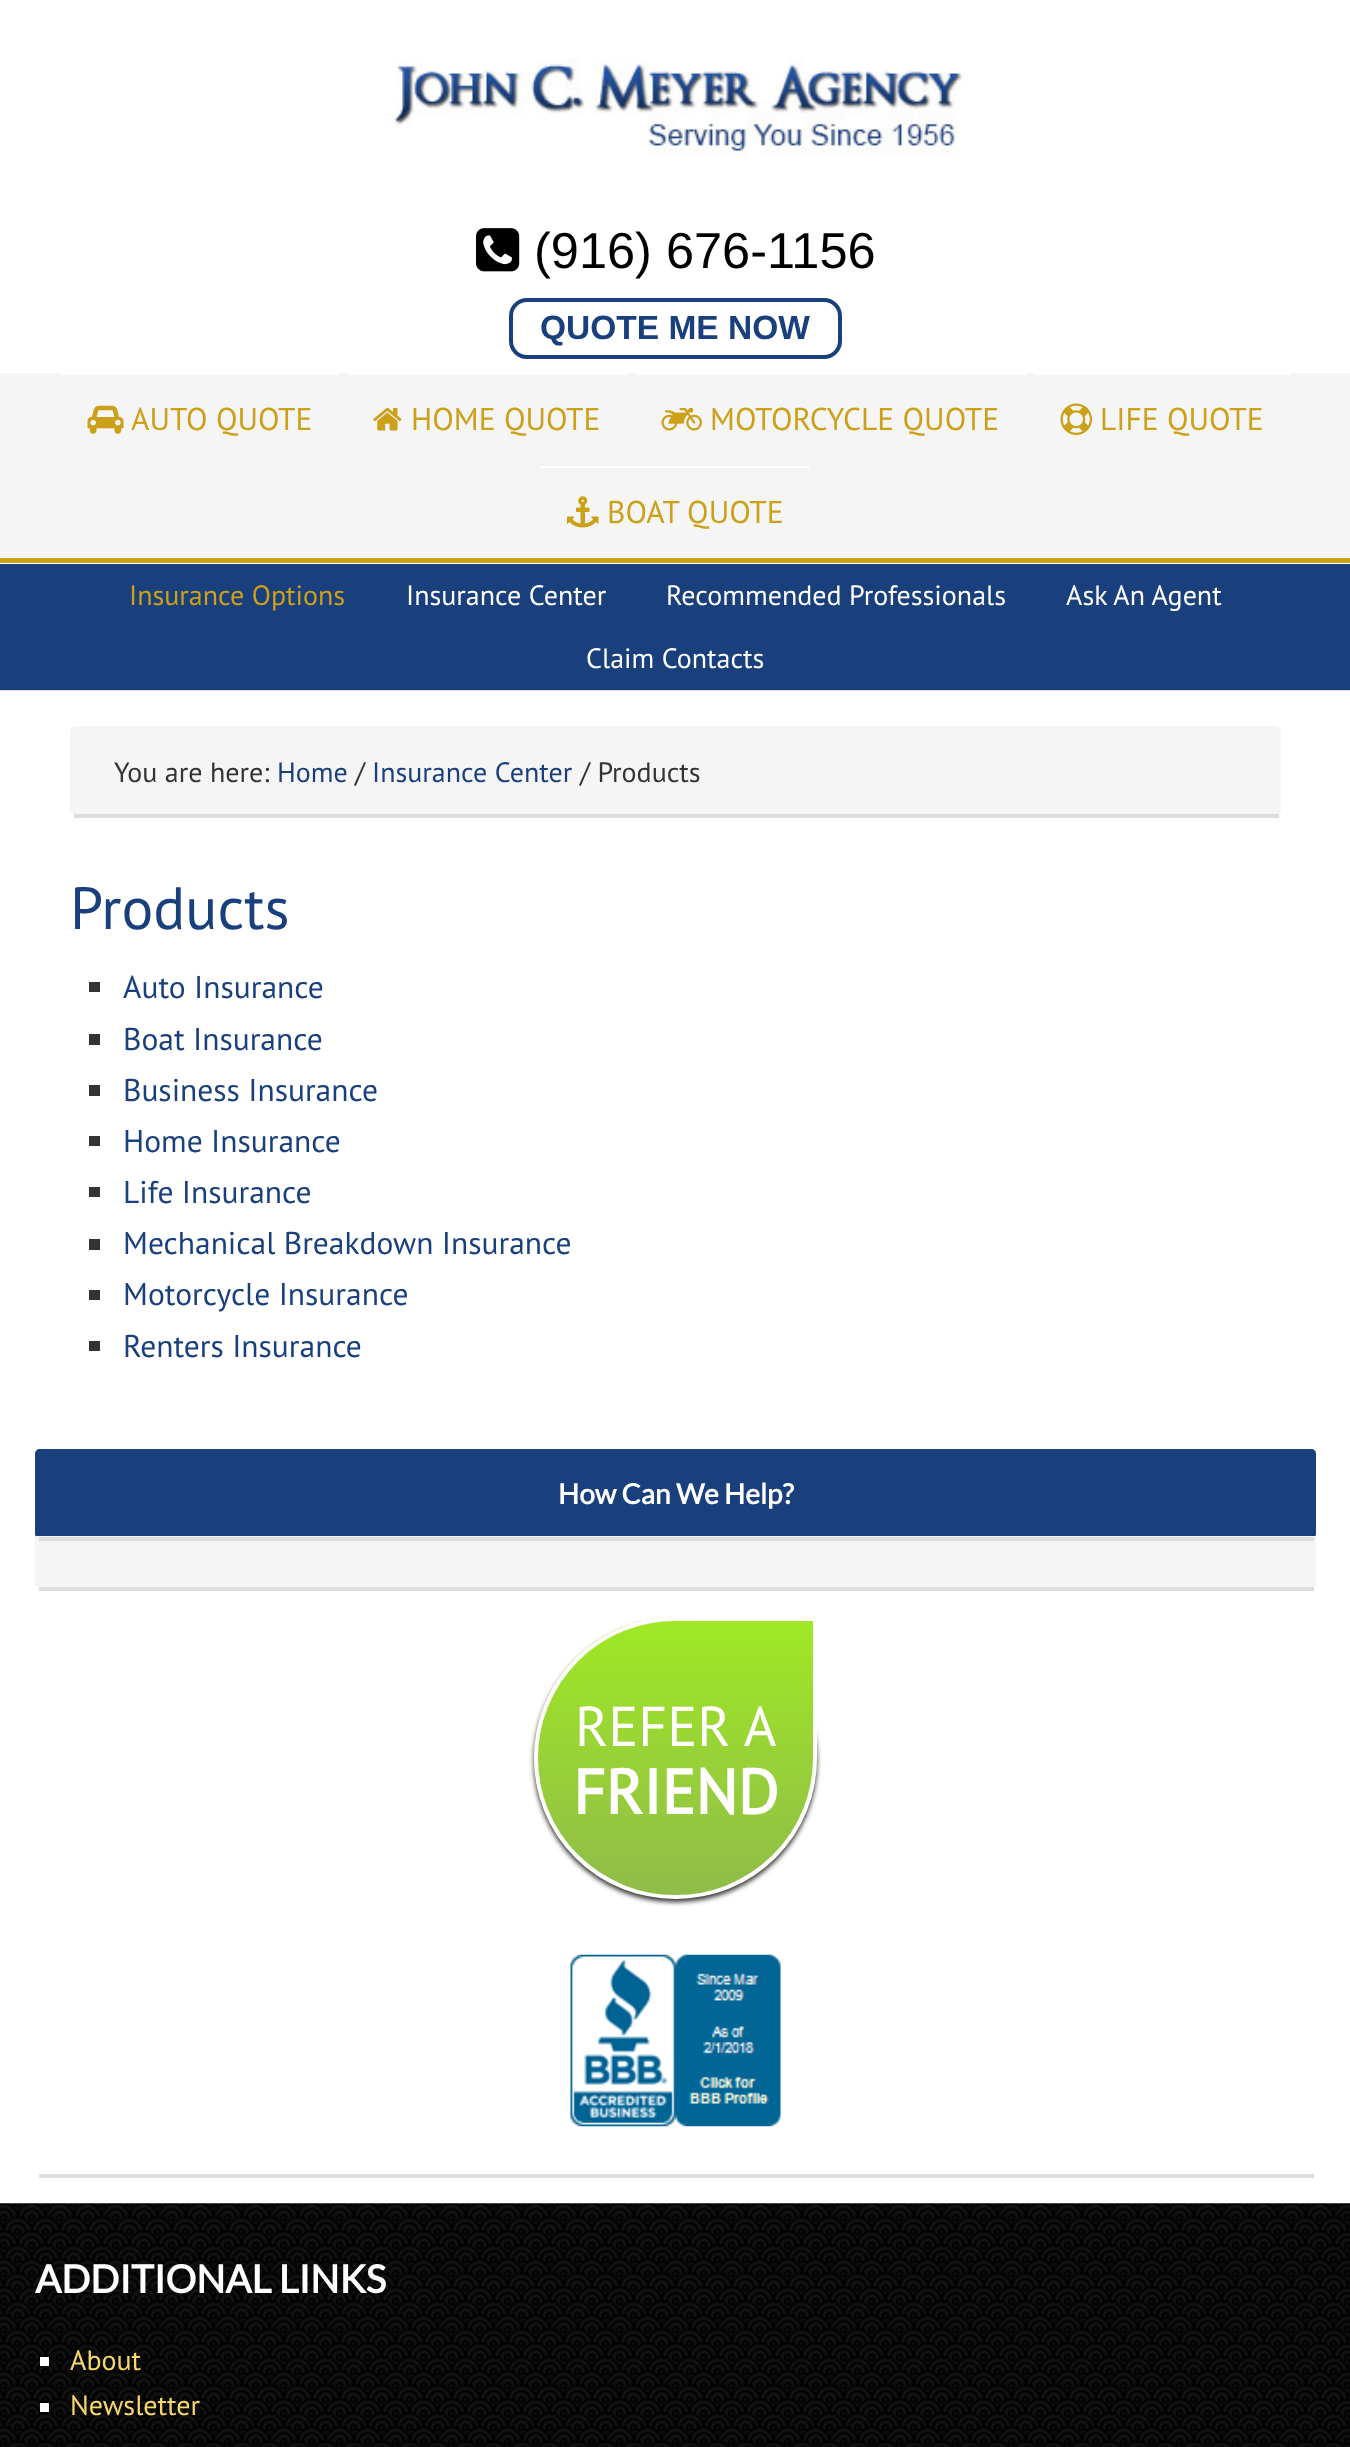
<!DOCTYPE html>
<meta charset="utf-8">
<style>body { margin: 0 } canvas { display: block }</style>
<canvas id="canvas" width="1350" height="2447"></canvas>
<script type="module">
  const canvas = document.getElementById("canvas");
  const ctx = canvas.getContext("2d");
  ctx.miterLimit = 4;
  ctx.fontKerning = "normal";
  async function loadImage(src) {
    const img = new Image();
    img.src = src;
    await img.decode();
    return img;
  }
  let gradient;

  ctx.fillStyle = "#ffffff";
  ctx.fillRect(0, 0, 1350, 2447);
  ctx.drawImage(await loadImage("img1.png"), 385, 58, 584, 98);
  ctx.drawImage(await loadImage("img2.png"), 476, 228, 44, 44);
  ctx.font = "50.5px Liberation Sans";
  ctx.fillStyle = "#000000";
  ctx.fillText("(916) 676-1156", 534, 268);
  ctx.beginPath();
  ctx.roundRect(511, 300, 329, 57, 16);
  ctx.strokeStyle = "#193f7d";
  ctx.lineWidth = 4;
  ctx.stroke();
  ctx.font = "bold 33.5px Liberation Sans";
  ctx.fillStyle = "#193f7d";
  ctx.fillText("QUOTE ME NOW", 540, 339);
  ctx.fillStyle = "#f5f5f6";
  ctx.fillRect(0, 373, 1350, 185);
  ctx.fillStyle = "#cca018";
  ctx.fillRect(0, 558, 1350, 5);
  ctx.fillStyle = "#ffffff";
  ctx.fillRect(61, 373, 277, 2);
  ctx.drawImage(await loadImage("img3.png"), 87, 405, 37, 29);
  ctx.font = "31.5px PT Sans";
  ctx.fillStyle = "#cca018";
  ctx.fillText("AUTO QUOTE", 131, 430);
  ctx.fillStyle = "#ffffff";
  ctx.fillRect(347, 373, 280, 2);
  ctx.drawImage(await loadImage("img4.png"), 373, 408, 29, 23);
  ctx.fillStyle = "#cca018";
  ctx.fillText("HOME QUOTE", 411, 430);
  ctx.fillStyle = "#ffffff";
  ctx.fillRect(635, 373, 391, 2);
  ctx.drawImage(await loadImage("img5.png"), 661, 408, 41, 23);
  ctx.fillStyle = "#cca018";
  ctx.fillText("MOTORCYCLE QUOTE", 710, 430);
  ctx.fillStyle = "#ffffff";
  ctx.fillRect(1034, 373, 256, 2);
  ctx.drawImage(await loadImage("img6.png"), 1060, 403, 32, 32);
  ctx.fillStyle = "#cca018";
  ctx.fillText("LIFE QUOTE", 1100, 430);
  ctx.fillStyle = "#ffffff";
  ctx.fillRect(541, 466, 269, 2);
  ctx.drawImage(await loadImage("img7.png"), 567, 496, 32, 32);
  ctx.fillStyle = "#cca018";
  ctx.fillText("BOAT QUOTE", 607, 523);
  ctx.fillStyle = "#193f7d";
  ctx.fillRect(0, 564, 1350, 126);
  ctx.fillStyle = "#e0dede";
  ctx.fillRect(0, 690, 1350, 1);
  ctx.font = "28px PT Sans";
  ctx.fillStyle = "#cca018";
  ctx.fillText("Insurance Options", 129, 605);
  ctx.fillStyle = "#ffffff";
  ctx.fillText("Insurance Center", 406, 605);
  ctx.fillText("Recommended Professionals", 666, 605);
  ctx.fillText("Ask An Agent", 1066, 605);
  ctx.fillText("Claim Contacts", 586, 668);
  ctx.fillStyle = "#f5f5f5";
  ctx.beginPath();
  ctx.moveTo(75, 726);
  ctx.lineTo(1276, 726);
  ctx.bezierCurveTo(1279, 726, 1281, 729, 1281, 732);
  ctx.lineTo(1281, 812);
  ctx.bezierCurveTo(1281, 813, 1279, 814, 1276, 814);
  ctx.lineTo(75, 814);
  ctx.bezierCurveTo(72, 814, 70, 813, 70, 812);
  ctx.lineTo(70, 732);
  ctx.bezierCurveTo(70, 729, 72, 726, 75, 726);
  ctx.closePath();
  ctx.fill();
  ctx.fillStyle = "#dddddd";
  ctx.fillRect(74, 814, 1205, 4);
  ctx.fillStyle = "#333333";
  ctx.fillText("You are here:", 114, 782);
  ctx.fillStyle = "#193f7d";
  ctx.fillText("Home", 277, 782);
  ctx.fillStyle = "#333333";
  ctx.fillText("/", 355, 782);
  ctx.fillStyle = "#193f7d";
  ctx.fillText("Insurance Center", 372, 782);
  ctx.fillStyle = "#333333";
  ctx.fillText("/ Products", 580, 782);
  ctx.font = "59.5px PT Sans";
  ctx.fillStyle = "#193f7d";
  ctx.fillText("Products", 70, 929);
  ctx.fillStyle = "#333333";
  ctx.fillRect(89, 982, 11, 10);
  ctx.font = "31.5px PT Sans";
  ctx.fillStyle = "#193f7d";
  ctx.fillText("Auto Insurance", 123, 998);
  ctx.fillStyle = "#333333";
  ctx.fillRect(89, 1034, 11, 11);
  ctx.fillStyle = "#193f7d";
  ctx.fillText("Boat Insurance", 123, 1050);
  ctx.fillStyle = "#333333";
  ctx.fillRect(89, 1085, 11, 11);
  ctx.fillStyle = "#193f7d";
  ctx.fillText("Business Insurance", 123, 1101);
  ctx.fillStyle = "#333333";
  ctx.fillRect(89, 1136, 11, 10);
  ctx.fillStyle = "#193f7d";
  ctx.fillText("Home Insurance", 123, 1152);
  ctx.fillStyle = "#333333";
  ctx.fillRect(89, 1187, 11, 10);
  ctx.fillStyle = "#193f7d";
  ctx.fillText("Life Insurance", 123, 1203);
  ctx.fillStyle = "#333333";
  ctx.fillRect(89, 1239, 11, 11);
  ctx.fillStyle = "#193f7d";
  ctx.fillText("Mechanical Breakdown Insurance", 123, 1254);
  ctx.fillStyle = "#333333";
  ctx.fillRect(89, 1290, 11, 10);
  ctx.fillStyle = "#193f7d";
  ctx.fillText("Motorcycle Insurance", 123, 1305);
  ctx.fillStyle = "#333333";
  ctx.fillRect(89, 1341, 11, 10);
  ctx.fillStyle = "#193f7d";
  ctx.fillText("Renters Insurance", 123, 1357);
  ctx.fillStyle = "#f5f5f5";
  ctx.beginPath();
  ctx.moveTo(40, 1449);
  ctx.lineTo(1311, 1449);
  ctx.bezierCurveTo(1314, 1449, 1316, 1451, 1316, 1454);
  ctx.lineTo(1316, 1586);
  ctx.bezierCurveTo(1316, 1586, 1314, 1587, 1311, 1587);
  ctx.lineTo(40, 1587);
  ctx.bezierCurveTo(37, 1587, 35, 1586, 35, 1586);
  ctx.lineTo(35, 1454);
  ctx.bezierCurveTo(35, 1451, 37, 1449, 40, 1449);
  ctx.closePath();
  ctx.fill();
  ctx.fillStyle = "#dddddd";
  ctx.fillRect(39, 1587, 1275, 4);
  ctx.fillStyle = "#193f7d";
  ctx.beginPath();
  ctx.moveTo(40, 1449);
  ctx.lineTo(1311, 1449);
  ctx.bezierCurveTo(1314, 1449, 1316, 1451, 1316, 1454);
  ctx.lineTo(1316, 1535);
  ctx.bezierCurveTo(1316, 1536, 1314, 1536, 1311, 1536);
  ctx.lineTo(40, 1536);
  ctx.bezierCurveTo(37, 1536, 35, 1536, 35, 1535);
  ctx.lineTo(35, 1454);
  ctx.bezierCurveTo(35, 1451, 37, 1449, 40, 1449);
  ctx.closePath();
  ctx.fill();
  ctx.fillStyle = "#dddddd";
  ctx.fillRect(39, 1537, 1275, 4);
  ctx.font = "bold 28px Lato";
  ctx.fillStyle = "#ffffff";
  ctx.fillText("How Can We Help?", 558, 1504);
  ctx.fillStyle = "rgba(0, 0, 0, 0.8)";
  ctx.filter = "blur(2.5px)";
  ctx.beginPath();
  ctx.roundRect(534, 1621, 283, 281, 140.5);
  ctx.fill();
  ctx.filter = "none";
  ctx.save();
  ctx.beginPath();
  ctx.roundRect(534, 1617, 283, 282, [141, 0, 141, 141]);
  ctx.clip();
  gradient = ctx.createLinearGradient(676, 1621, 676, 1895);
  gradient.addColorStop(0, "#a0e825");
  gradient.addColorStop(1, "#90bc49");
  ctx.fillStyle = gradient;
  ctx.fillRect(534, 1621, 283, 274);
  ctx.restore();
  ctx.beginPath();
  ctx.roundRect(536, 1619, 279, 278, [139, 0, 139, 139]);
  ctx.strokeStyle = "#ffffff";
  ctx.stroke();
  ctx.font = "56px PT Sans";
  ctx.fillStyle = "#ffffff";
  ctx.fillText("REFER A", 575, 1746);
  ctx.font = "bold 63px PT Sans";
  ctx.fillText("FRIEND", 573, 1814);
  ctx.fillStyle = "#dddddd";
  ctx.fillRect(39, 2174, 1275, 4);
  ctx.drawImage(await loadImage("img8.png"), 570, 1954, 211, 173);
  ctx.drawImage(await loadImage("img9.png"), 0, 2203, 1350, 244);
  ctx.font = "bold 38.5px Lato";
  ctx.fillStyle = "#ffffff";
  ctx.fillText("ADDITIONAL LINKS", 35, 2293);
  ctx.fillRect(40, 2357, 9, 9);
  ctx.font = "28px PT Sans";
  ctx.fillStyle = "#f9d76b";
  ctx.fillText("About", 70, 2370);
  ctx.fillStyle = "#ffffff";
  ctx.fillRect(40, 2403, 9, 9);
  ctx.fillStyle = "#f9d76b";
  ctx.fillText("Newsletter", 70, 2415);
</script>
